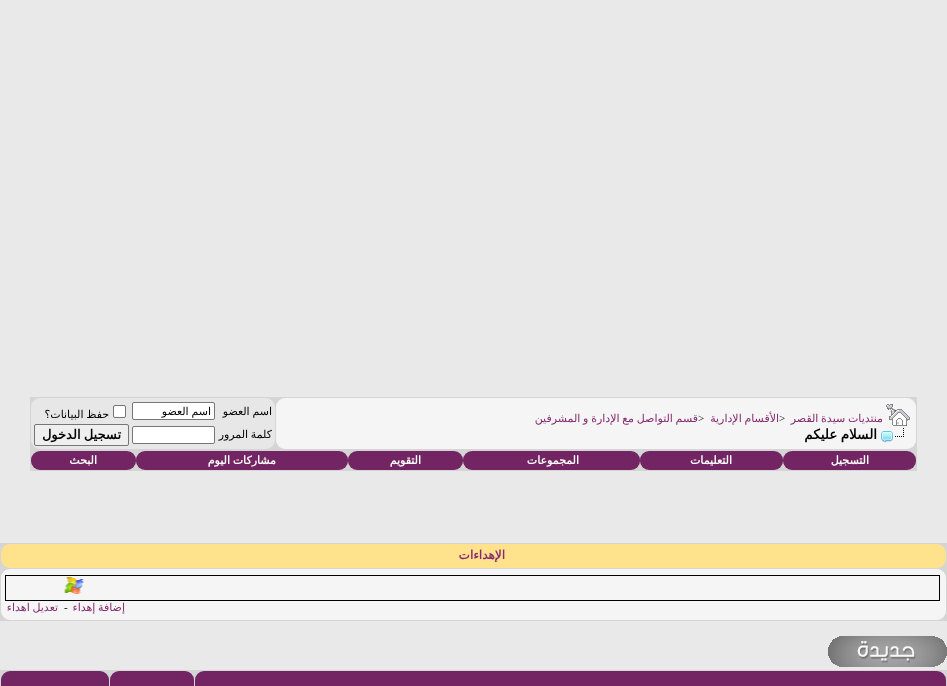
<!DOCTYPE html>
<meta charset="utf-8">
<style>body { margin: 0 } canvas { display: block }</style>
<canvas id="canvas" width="947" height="686"></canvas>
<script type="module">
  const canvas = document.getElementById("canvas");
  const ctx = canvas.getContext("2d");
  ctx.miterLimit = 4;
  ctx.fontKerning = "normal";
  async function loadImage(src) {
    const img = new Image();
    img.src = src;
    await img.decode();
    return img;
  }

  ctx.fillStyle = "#e9e9e9";
  ctx.fillRect(0, 0, 947, 686);
  ctx.fillStyle = "#d5d5d5";
  ctx.fillRect(30, 397, 887, 74);
  ctx.fillStyle = "#f5f5f5";
  ctx.beginPath();
  ctx.roundRect(276, 398, 640, 51, 9);
  ctx.fill();
  ctx.drawImage(await loadImage("img1.png"), 886, 404, 24, 22);
  ctx.wordSpacing = "-0.75px";
  ctx.direction = "rtl";
  ctx.font = "11px DejaVu Sans";
  ctx.fillStyle = "#852b70";
  ctx.fillText("منتديات سيدة القصر", 883, 422);
  ctx.wordSpacing = "0px";
  ctx.direction = "ltr";
  ctx.font = "11px Liberation Serif";
  ctx.fillStyle = "#000000";
  ctx.fillText(">", 779, 422);
  ctx.wordSpacing = "-0.75px";
  ctx.direction = "rtl";
  ctx.font = "11px DejaVu Sans";
  ctx.fillStyle = "#852b70";
  ctx.fillText("الأقسام الإدارية", 779, 422);
  ctx.wordSpacing = "0px";
  ctx.direction = "ltr";
  ctx.font = "11px Liberation Serif";
  ctx.fillStyle = "#000000";
  ctx.fillText(">", 698, 422);
  ctx.wordSpacing = "-0.75px";
  ctx.direction = "rtl";
  ctx.font = "11px DejaVu Sans";
  ctx.fillStyle = "#852b70";
  ctx.fillText("قسم التواصل مع الإدارة و المشرفين", 698, 422);
  ctx.drawImage(await loadImage("img2.png"), 881, 428, 23, 15);
  ctx.wordSpacing = "-1px";
  ctx.font = "bold 13.5px DejaVu Sans";
  ctx.fillStyle = "#000000";
  ctx.fillText("السلام عليكم", 877, 439);
  ctx.fillStyle = "#e7e7e7";
  ctx.beginPath();
  ctx.roundRect(31, 398, 244, 51, 9);
  ctx.fill();
  ctx.wordSpacing = "-0.75px";
  ctx.font = "11px DejaVu Sans";
  ctx.fillStyle = "#000000";
  ctx.fillText("اسم العضو", 272, 415);
  ctx.fillStyle = "#ffffff";
  ctx.beginPath();
  ctx.roundRect(132.5, 402.5, 82, 17, 1.5);
  ctx.fill();
  ctx.strokeStyle = "#767676";
  ctx.stroke();
  ctx.fillStyle = "#000000";
  ctx.fillText("اسم العضو", 211, 415);
  ctx.fillStyle = "#ffffff";
  ctx.beginPath();
  ctx.roundRect(113.5, 405.5, 12, 12, 1.5);
  ctx.fill();
  ctx.stroke();
  ctx.fillStyle = "#000000";
  ctx.fillText("حفظ البيانات؟", 109, 418);
  ctx.fillText("كلمة المرور", 272, 438);
  ctx.fillStyle = "#ffffff";
  ctx.beginPath();
  ctx.roundRect(132.5, 426.5, 82, 17, 1.5);
  ctx.fill();
  ctx.stroke();
  ctx.fillStyle = "#efefef";
  ctx.beginPath();
  ctx.roundRect(34.5, 424.5, 94, 21, 1.5);
  ctx.fill();
  ctx.stroke();
  ctx.wordSpacing = "-1px";
  ctx.font = "bold 13px DejaVu Sans";
  ctx.fillStyle = "#000000";
  ctx.fillText("تسجيل الدخول", 121, 439);
  ctx.fillStyle = "#732563";
  ctx.beginPath();
  ctx.roundRect(783, 451, 133, 19, 9);
  ctx.fill();
  ctx.wordSpacing = "0px";
  ctx.font = "bold 11px DejaVu Sans";
  ctx.fillStyle = "#ffffff";
  ctx.fillText("التسجيل", 869, 464);
  ctx.fillStyle = "#732563";
  ctx.beginPath();
  ctx.roundRect(640, 451, 143, 19, 9);
  ctx.fill();
  ctx.fillStyle = "#ffffff";
  ctx.fillText("التعليمات", 732, 464);
  ctx.fillStyle = "#732563";
  ctx.beginPath();
  ctx.roundRect(463, 451, 177, 19, 9);
  ctx.fill();
  ctx.fillStyle = "#ffffff";
  ctx.fillText("المجموعات", 579, 464);
  ctx.fillStyle = "#732563";
  ctx.beginPath();
  ctx.roundRect(348, 451, 115, 19, 9);
  ctx.fill();
  ctx.fillStyle = "#ffffff";
  ctx.fillText("التقويم", 421, 464);
  ctx.fillStyle = "#732563";
  ctx.beginPath();
  ctx.roundRect(136, 451, 212, 19, 9);
  ctx.fill();
  ctx.wordSpacing = "-0.75px";
  ctx.fillStyle = "#ffffff";
  ctx.fillText("مشاركات اليوم", 276, 464);
  ctx.fillStyle = "#732563";
  ctx.beginPath();
  ctx.roundRect(31, 451, 105, 19, 9);
  ctx.fill();
  ctx.wordSpacing = "0px";
  ctx.fillStyle = "#ffffff";
  ctx.fillText("البحث", 97, 464);
  ctx.fillStyle = "#d5d5d5";
  ctx.fillRect(0, 543, 947, 78);
  ctx.fillStyle = "#ffe28b";
  ctx.beginPath();
  ctx.roundRect(1, 544, 945, 24, 9);
  ctx.fill();
  ctx.font = "bold 12px DejaVu Sans";
  ctx.fillStyle = "#852b70";
  ctx.fillText("الإهداءات", 505, 559);
  ctx.fillStyle = "#f5f5f5";
  ctx.beginPath();
  ctx.roundRect(1, 569, 945, 51, 9);
  ctx.fill();
  ctx.strokeStyle = "#000000";
  ctx.strokeRect(5.5, 575.5, 934, 25);
  ctx.drawImage(await loadImage("img3.png"), 64, 577, 20, 17);
  ctx.wordSpacing = "-0.75px";
  ctx.font = "11px DejaVu Sans";
  ctx.fillStyle = "#852b70";
  ctx.fillText("إضافة إهداء", 125, 611);
  ctx.wordSpacing = "0px";
  ctx.direction = "ltr";
  ctx.font = "11px Liberation Serif";
  ctx.fillStyle = "#000000";
  ctx.fillText("-", 64, 611);
  ctx.wordSpacing = "-0.75px";
  ctx.direction = "rtl";
  ctx.font = "11px DejaVu Sans";
  ctx.fillStyle = "#852b70";
  ctx.fillText("تعديل اهداء", 58, 611);
  ctx.drawImage(await loadImage("img4.png"), 828, 636, 119, 31);
  ctx.fillStyle = "#d5d5d5";
  ctx.fillRect(0, 670, 947, 16);
  ctx.fillStyle = "#732563";
  ctx.beginPath();
  ctx.roundRect(195, 671, 751, 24, 9);
  ctx.fill();
  ctx.beginPath();
  ctx.roundRect(110, 671, 84, 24, 9);
  ctx.fill();
  ctx.beginPath();
  ctx.roundRect(1, 671, 108, 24, 9);
  ctx.fill();
</script>
